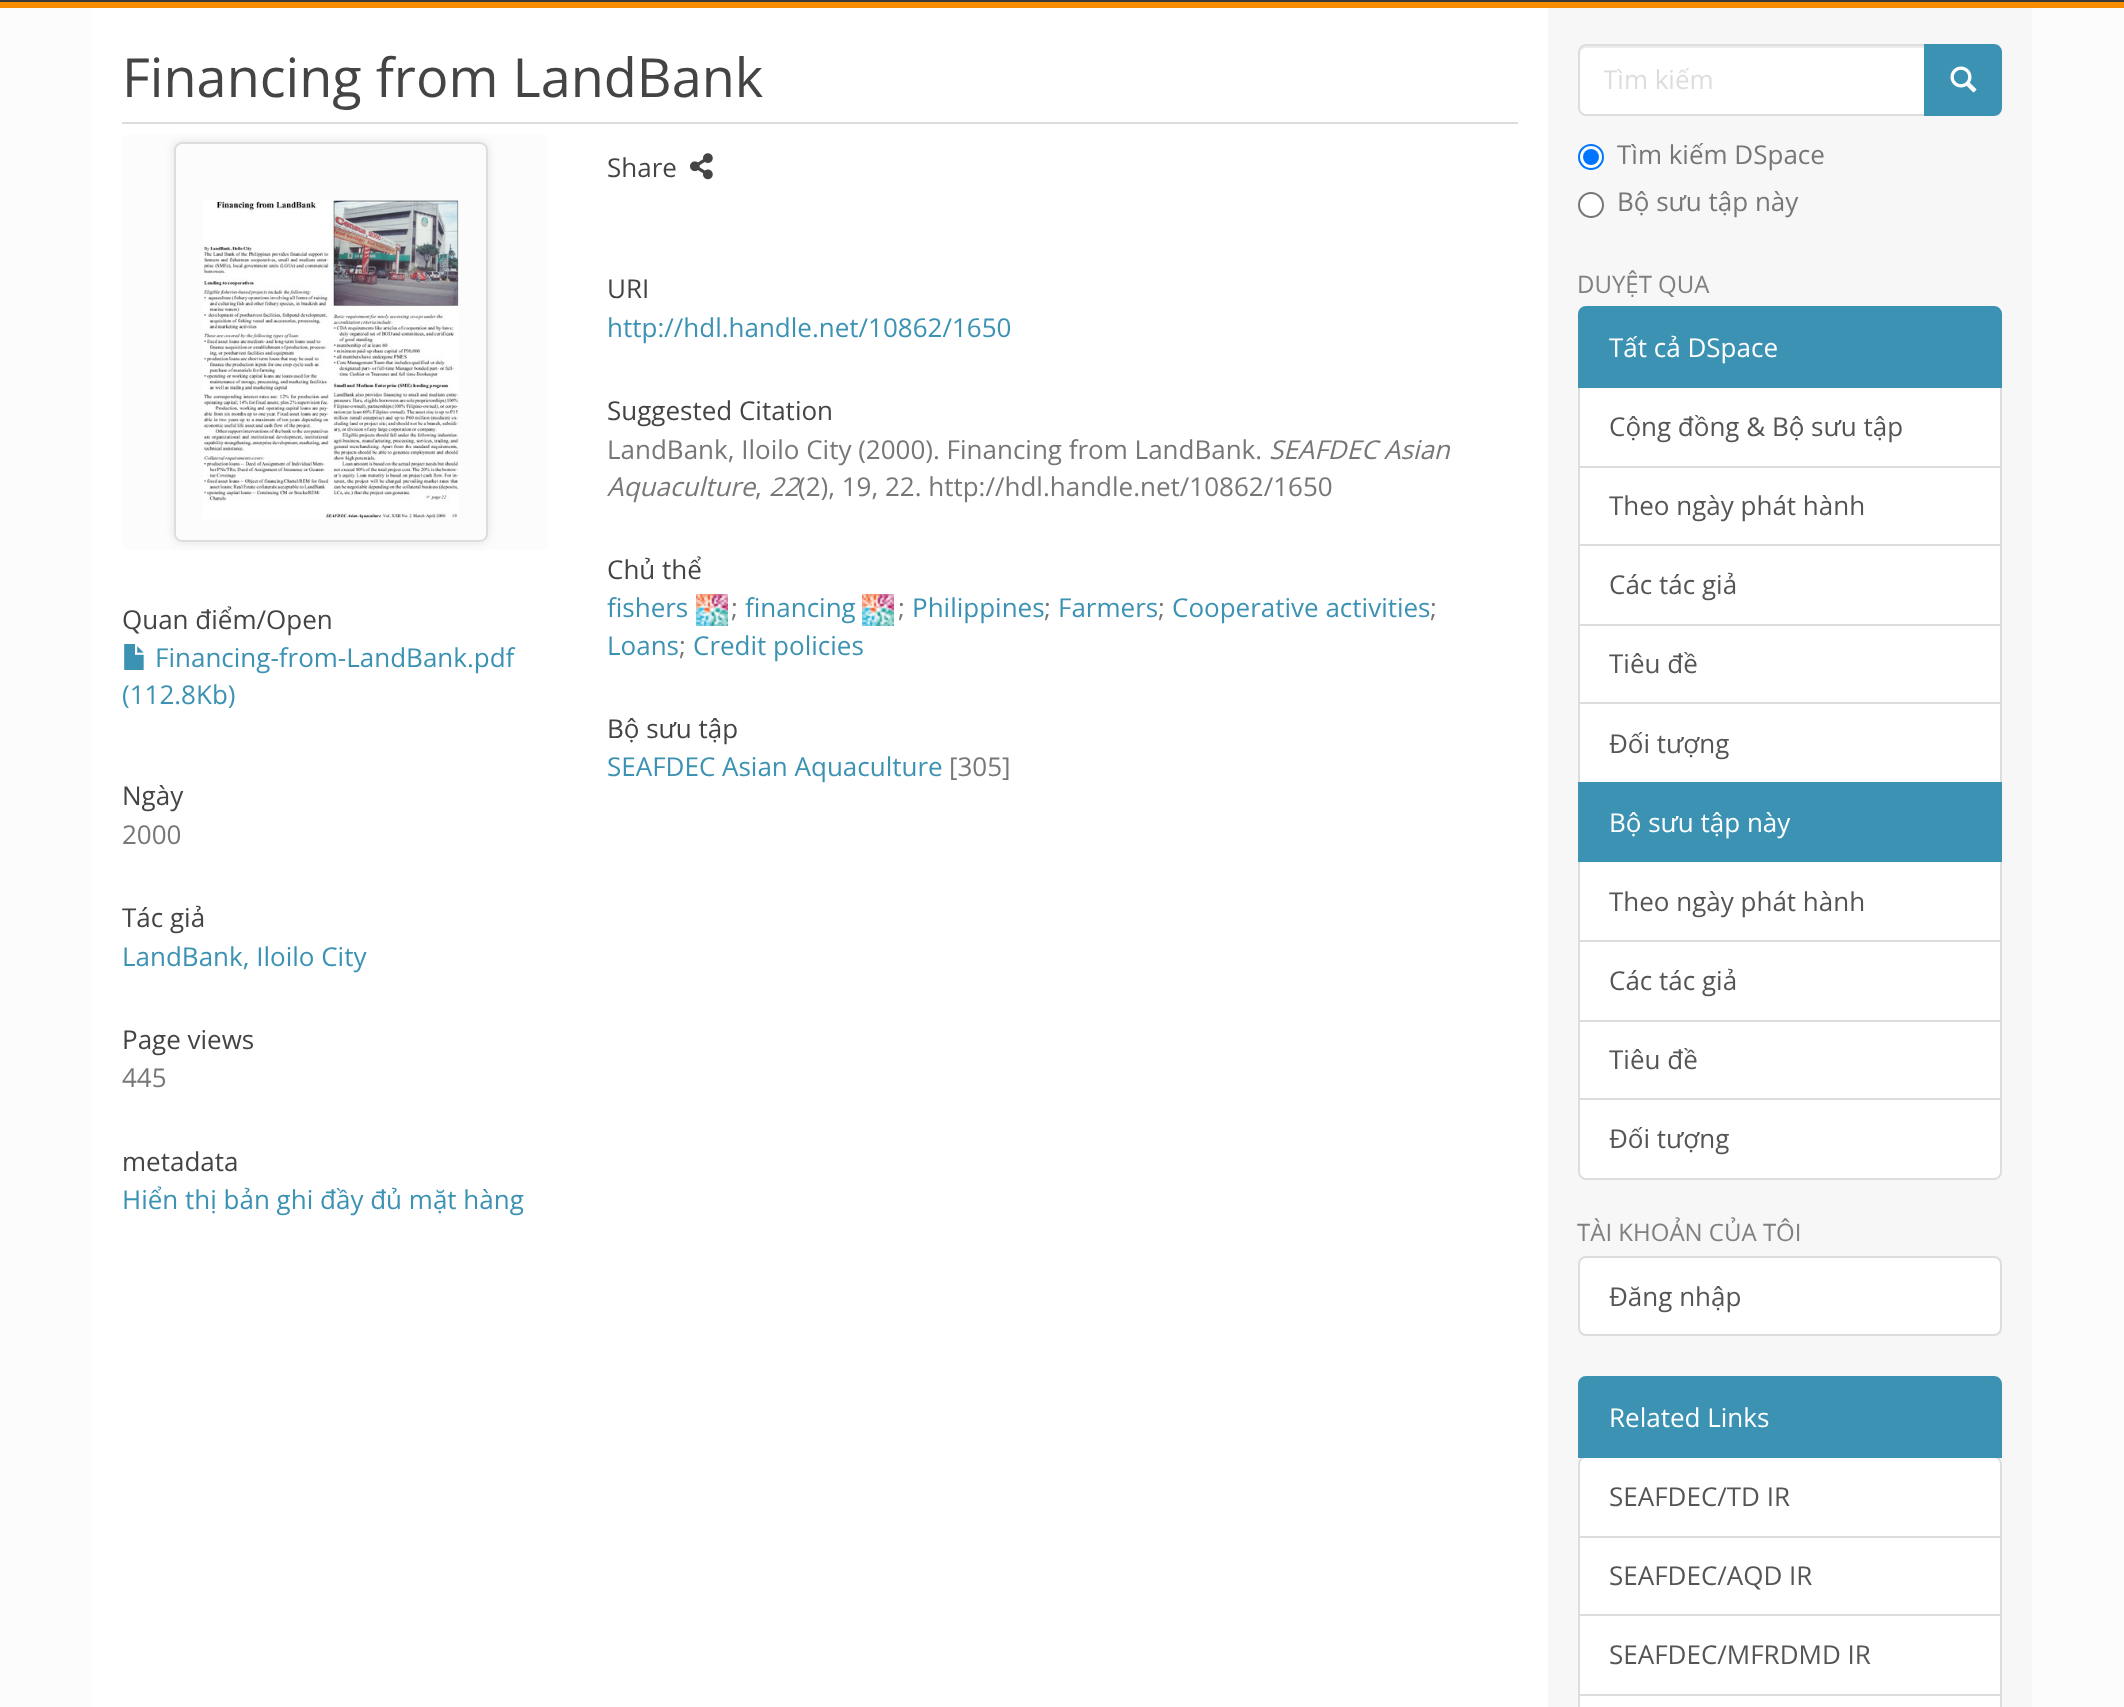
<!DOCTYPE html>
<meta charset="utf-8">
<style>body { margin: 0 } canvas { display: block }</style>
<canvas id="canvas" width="2124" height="1707"></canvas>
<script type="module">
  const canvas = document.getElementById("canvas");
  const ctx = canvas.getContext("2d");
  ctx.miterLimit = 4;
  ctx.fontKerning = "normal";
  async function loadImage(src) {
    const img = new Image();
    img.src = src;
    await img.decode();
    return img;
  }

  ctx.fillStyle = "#fcfcfc";
  ctx.fillRect(0, 0, 2124, 1707);
  ctx.save();
  ctx.beginPath();
  ctx.rect(0, 0, 2124, 2);
  ctx.clip();
  ctx.fillStyle = "#393939";
  ctx.beginPath();
  ctx.moveTo(-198, -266);
  ctx.lineTo(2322, -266);
  ctx.lineTo(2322, 200);
  ctx.lineTo(-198, 200);
  ctx.closePath();
  ctx.moveTo(-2, -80);
  ctx.lineTo(2122, -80);
  ctx.bezierCurveTo(2123, -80, 2124, -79, 2124, -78);
  ctx.lineTo(2124, -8);
  ctx.bezierCurveTo(2124, -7, 2123, -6, 2122, -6);
  ctx.lineTo(-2, -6);
  ctx.bezierCurveTo(-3, -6, -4, -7, -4, -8);
  ctx.lineTo(-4, -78);
  ctx.bezierCurveTo(-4, -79, -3, -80, -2, -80);
  ctx.closePath();
  ctx.fill("evenodd");
  ctx.restore();
  ctx.fillStyle = "#f88c00";
  ctx.fillRect(0, 2, 2124, 6);
  ctx.fillStyle = "#f7f7f7";
  ctx.fillRect(1548, 8, 484, 1699);
  ctx.fillStyle = "#ffffff";
  ctx.fillRect(92, 8, 1456, 1699);
  ctx.fillStyle = "#dddddd";
  ctx.fillRect(122, 122, 1396, 2);
  ctx.font = "54px Open Sans";
  ctx.fillStyle = "#444444";
  ctx.fillText("Financing from LandBank", 122, 97);
  ctx.font = "26px Open Sans";
  ctx.fillText("Share", 607, 177);
  ctx.drawImage(await loadImage("img1.png"), 690, 153, 23, 27);
  ctx.fillText("URI", 607, 298);
  ctx.fillStyle = "#3c92b3";
  ctx.fillText("http://hdl.handle.net/10862/1650", 607, 337);
  ctx.fillStyle = "#444444";
  ctx.fillText("Suggested Citation", 607, 420);
  ctx.fillStyle = "#777777";
  ctx.fillText("LandBank, Iloilo City (2000). Financing from LandBank.", 607, 459);
  ctx.font = "italic 26px Open Sans";
  ctx.fillText("SEAFDEC Asian", 1269, 459);
  ctx.fillText("Aquaculture", 607, 496);
  ctx.font = "26px Open Sans";
  ctx.fillText(",", 755, 496);
  ctx.font = "italic 26px Open Sans";
  ctx.fillText("22", 769, 496);
  ctx.font = "26px Open Sans";
  ctx.fillText("(2), 19, 22. http://hdl.handle.net/10862/1650", 798, 496);
  ctx.fillStyle = "#444444";
  ctx.fillText("Chủ thể", 607, 579);
  ctx.fillStyle = "#3c92b3";
  ctx.fillText("fishers", 607, 617);
  ctx.drawImage(await loadImage("img2.png"), 696, 594, 32, 32);
  ctx.fillStyle = "#777777";
  ctx.fillText(";", 731, 617);
  ctx.fillStyle = "#3c92b3";
  ctx.fillText("financing", 745, 617);
  ctx.drawImage(await loadImage("img2.png"), 862, 594, 32, 32);
  ctx.fillStyle = "#777777";
  ctx.fillText(";", 898, 617);
  ctx.fillStyle = "#3c92b3";
  ctx.fillText("Philippines", 912, 617);
  ctx.fillStyle = "#777777";
  ctx.fillText(";", 1044, 617);
  ctx.fillStyle = "#3c92b3";
  ctx.fillText("Farmers", 1058, 617);
  ctx.fillStyle = "#777777";
  ctx.fillText(";", 1158, 617);
  ctx.fillStyle = "#3c92b3";
  ctx.fillText("Cooperative activities", 1172, 617);
  ctx.fillStyle = "#777777";
  ctx.fillText(";", 1430, 617);
  ctx.fillStyle = "#3c92b3";
  ctx.fillText("Loans", 607, 655);
  ctx.fillStyle = "#777777";
  ctx.fillText(";", 679, 655);
  ctx.fillStyle = "#3c92b3";
  ctx.fillText("Credit policies", 693, 655);
  ctx.fillStyle = "#444444";
  ctx.fillText("Bộ sưu tập", 607, 738);
  ctx.fillStyle = "#3c92b3";
  ctx.fillText("SEAFDEC Asian Aquaculture", 607, 776);
  ctx.fillStyle = "#777777";
  ctx.fillText("[305]", 949, 776);
  ctx.fillStyle = "#fcfcfc";
  ctx.beginPath();
  ctx.roundRect(122, 134, 426, 416, 8);
  ctx.fill();
  ctx.save();
  ctx.beginPath();
  ctx.moveTo(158, 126);
  ctx.lineTo(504, 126);
  ctx.lineTo(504, 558);
  ctx.lineTo(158, 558);
  ctx.closePath();
  ctx.moveTo(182, 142);
  ctx.lineTo(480, 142);
  ctx.bezierCurveTo(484.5, 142, 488, 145.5, 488, 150);
  ctx.lineTo(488, 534);
  ctx.bezierCurveTo(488, 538.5, 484.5, 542, 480, 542);
  ctx.lineTo(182, 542);
  ctx.bezierCurveTo(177.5, 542, 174, 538.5, 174, 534);
  ctx.lineTo(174, 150);
  ctx.bezierCurveTo(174, 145.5, 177.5, 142, 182, 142);
  ctx.closePath();
  ctx.clip("evenodd");
  ctx.fillStyle = "rgba(0, 0, 0, 0.1)";
  ctx.filter = "blur(5px)";
  ctx.beginPath();
  ctx.roundRect(174, 142, 314, 400, 8);
  ctx.fill();
  ctx.filter = "none";
  ctx.restore();
  ctx.drawImage(await loadImage("img3.png"), 203, 200, 256, 319);
  ctx.beginPath();
  ctx.roundRect(175, 143, 312, 398, 7);
  ctx.strokeStyle = "#dddddd";
  ctx.lineWidth = 2;
  ctx.stroke();
  ctx.fillStyle = "#444444";
  ctx.fillText("Quan điểm/Open", 122, 629);
  ctx.drawImage(await loadImage("img4.png"), 124, 644, 20, 26);
  ctx.fillStyle = "#3c92b3";
  ctx.fillText("Financing-from-LandBank.pdf", 155, 667);
  ctx.fillText("(112.8Kb)", 122, 704);
  ctx.fillStyle = "#444444";
  ctx.fillText("Ngày", 122, 805);
  ctx.fillStyle = "#777777";
  ctx.fillText("2000", 122, 844);
  ctx.fillStyle = "#444444";
  ctx.fillText("Tác giả", 122, 927);
  ctx.fillStyle = "#3c92b3";
  ctx.fillText("LandBank, Iloilo City", 122, 966);
  ctx.fillStyle = "#444444";
  ctx.fillText("Page views", 122, 1049);
  ctx.fillStyle = "#777777";
  ctx.fillText("445", 122, 1087);
  ctx.fillStyle = "#444444";
  ctx.fillText("metadata", 122, 1171);
  ctx.fillStyle = "#3c92b3";
  ctx.fillText("Hiển thị bản ghi đầy đủ mặt hàng", 122, 1209);
  ctx.fillStyle = "#ffffff";
  ctx.beginPath();
  ctx.roundRect(1578, 44, 348, 72, [8, 0, 0, 8]);
  ctx.fill();
  ctx.fillStyle = "#ececec";
  ctx.beginPath();
  ctx.moveTo(1586, 48);
  ctx.lineTo(1924, 48);
  ctx.lineTo(1924, 46);
  ctx.lineTo(1586, 46);
  ctx.bezierCurveTo(1581, 46, 1580, 50, 1580, 54);
  ctx.bezierCurveTo(1580, 51, 1583, 48, 1586, 48);
  ctx.closePath();
  ctx.fill();
  ctx.beginPath();
  ctx.roundRect(1579, 45, 346, 70, [7, 0, 0, 7]);
  ctx.stroke();
  ctx.save();
  ctx.beginPath();
  ctx.rect(1604, 62, 296, 36);
  ctx.clip();
  ctx.fillStyle = "#dddddd";
  ctx.fillText("Tìm kiếm", 1603, 89);
  ctx.restore();
  ctx.fillStyle = "#3c92b3";
  ctx.beginPath();
  ctx.roundRect(1925, 45, 76, 70, [0, 7, 7, 0]);
  ctx.fill();
  ctx.strokeStyle = "#3c92b3";
  ctx.stroke();
  ctx.drawImage(await loadImage("img5.png"), 1950, 66, 27, 27);
  ctx.fillStyle = "#ffffff";
  ctx.beginPath();
  ctx.arc(1591, 157, 12, 0, Math.PI * 2);
  ctx.fill();
  ctx.strokeStyle = "#0075ff";
  ctx.stroke();
  ctx.fillStyle = "#0075ff";
  ctx.beginPath();
  ctx.arc(1591, 157, 8, 0, Math.PI * 2);
  ctx.fill();
  ctx.fillStyle = "#777777";
  ctx.fillText("Tìm kiếm DSpace", 1617, 164);
  ctx.fillStyle = "#ffffff";
  ctx.beginPath();
  ctx.arc(1591, 205, 12, 0, Math.PI * 2);
  ctx.fill();
  ctx.strokeStyle = "#767676";
  ctx.stroke();
  ctx.fillStyle = "#777777";
  ctx.fillText("Bộ sưu tập này", 1617, 211);
  ctx.font = "24px Open Sans";
  ctx.fillStyle = "#808080";
  ctx.fillText("DUYỆT QUA", 1577, 293);
  ctx.fillStyle = "#ffffff";
  ctx.beginPath();
  ctx.rect(1579, 387, 422, 80);
  ctx.fill();
  ctx.strokeStyle = "#dddddd";
  ctx.stroke();
  ctx.fillStyle = "#3c92b3";
  ctx.beginPath();
  ctx.roundRect(1579, 307, 422, 80, [7, 7, 0, 0]);
  ctx.fill();
  ctx.strokeStyle = "#3c92b3";
  ctx.stroke();
  ctx.font = "26px Open Sans";
  ctx.fillStyle = "#ffffff";
  ctx.fillText("Tất cả DSpace", 1609, 357);
  ctx.fillStyle = "#555555";
  ctx.fillText("Cộng đồng & Bộ sưu tập", 1609, 436);
  ctx.fillStyle = "#ffffff";
  ctx.beginPath();
  ctx.rect(1579, 467, 422, 78);
  ctx.fill();
  ctx.strokeStyle = "#dddddd";
  ctx.stroke();
  ctx.fillStyle = "#555555";
  ctx.fillText("Theo ngày phát hành", 1609, 515);
  ctx.fillStyle = "#ffffff";
  ctx.beginPath();
  ctx.rect(1579, 545, 422, 80);
  ctx.fill();
  ctx.stroke();
  ctx.fillStyle = "#555555";
  ctx.fillText("Các tác giả", 1609, 594);
  ctx.fillStyle = "#ffffff";
  ctx.beginPath();
  ctx.rect(1579, 625, 422, 78);
  ctx.fill();
  ctx.stroke();
  ctx.fillStyle = "#555555";
  ctx.fillText("Tiêu đề", 1609, 673);
  ctx.fillStyle = "#ffffff";
  ctx.beginPath();
  ctx.rect(1579, 703, 422, 80);
  ctx.fill();
  ctx.stroke();
  ctx.fillStyle = "#555555";
  ctx.fillText("Đối tượng", 1609, 753);
  ctx.fillStyle = "#ffffff";
  ctx.beginPath();
  ctx.rect(1579, 861, 422, 80);
  ctx.fill();
  ctx.stroke();
  ctx.fillStyle = "#3c92b3";
  ctx.fillRect(1578, 782, 424, 80);
  ctx.fillStyle = "#ffffff";
  ctx.fillText("Bộ sưu tập này", 1609, 832);
  ctx.fillStyle = "#555555";
  ctx.fillText("Theo ngày phát hành", 1609, 911);
  ctx.fillStyle = "#ffffff";
  ctx.beginPath();
  ctx.rect(1579, 941, 422, 80);
  ctx.fill();
  ctx.stroke();
  ctx.fillStyle = "#555555";
  ctx.fillText("Các tác giả", 1609, 990);
  ctx.fillStyle = "#ffffff";
  ctx.beginPath();
  ctx.rect(1579, 1021, 422, 78);
  ctx.fill();
  ctx.stroke();
  ctx.fillStyle = "#555555";
  ctx.fillText("Tiêu đề", 1609, 1069);
  ctx.fillStyle = "#ffffff";
  ctx.beginPath();
  ctx.roundRect(1579, 1099, 422, 80, [0, 0, 7, 7]);
  ctx.fill();
  ctx.stroke();
  ctx.fillStyle = "#555555";
  ctx.fillText("Đối tượng", 1609, 1148);
  ctx.font = "24px Open Sans";
  ctx.fillStyle = "#808080";
  ctx.fillText("TÀI KHOẢN CỦA TÔI", 1577, 1241);
  ctx.fillStyle = "#ffffff";
  ctx.beginPath();
  ctx.roundRect(1579, 1257, 422, 78, 7);
  ctx.fill();
  ctx.stroke();
  ctx.font = "26px Open Sans";
  ctx.fillStyle = "#555555";
  ctx.fillText("Đăng nhập", 1609, 1306);
  ctx.fillStyle = "#ffffff";
  ctx.beginPath();
  ctx.roundRect(1579, 1457, 422, 80, [7, 7, 0, 0]);
  ctx.fill();
  ctx.stroke();
  ctx.fillStyle = "#3c92b3";
  ctx.beginPath();
  ctx.roundRect(1579, 1377, 422, 80, [7, 7, 0, 0]);
  ctx.fill();
  ctx.strokeStyle = "#3c92b3";
  ctx.stroke();
  ctx.fillStyle = "#ffffff";
  ctx.fillText("Related Links", 1609, 1427);
  ctx.fillStyle = "#555555";
  ctx.fillText("SEAFDEC/TD IR", 1609, 1506);
  ctx.fillStyle = "#ffffff";
  ctx.beginPath();
  ctx.rect(1579, 1537, 422, 78);
  ctx.fill();
  ctx.strokeStyle = "#dddddd";
  ctx.stroke();
  ctx.fillStyle = "#555555";
  ctx.fillText("SEAFDEC/AQD IR", 1609, 1585);
  ctx.fillStyle = "#ffffff";
  ctx.beginPath();
  ctx.rect(1579, 1615, 422, 80);
  ctx.fill();
  ctx.stroke();
  ctx.fillStyle = "#555555";
  ctx.fillText("SEAFDEC/MFRDMD IR", 1609, 1664);
  ctx.fillStyle = "#ffffff";
  ctx.beginPath();
  ctx.rect(1579, 1695, 422, 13);
  ctx.fill();
  ctx.stroke();
</script>
